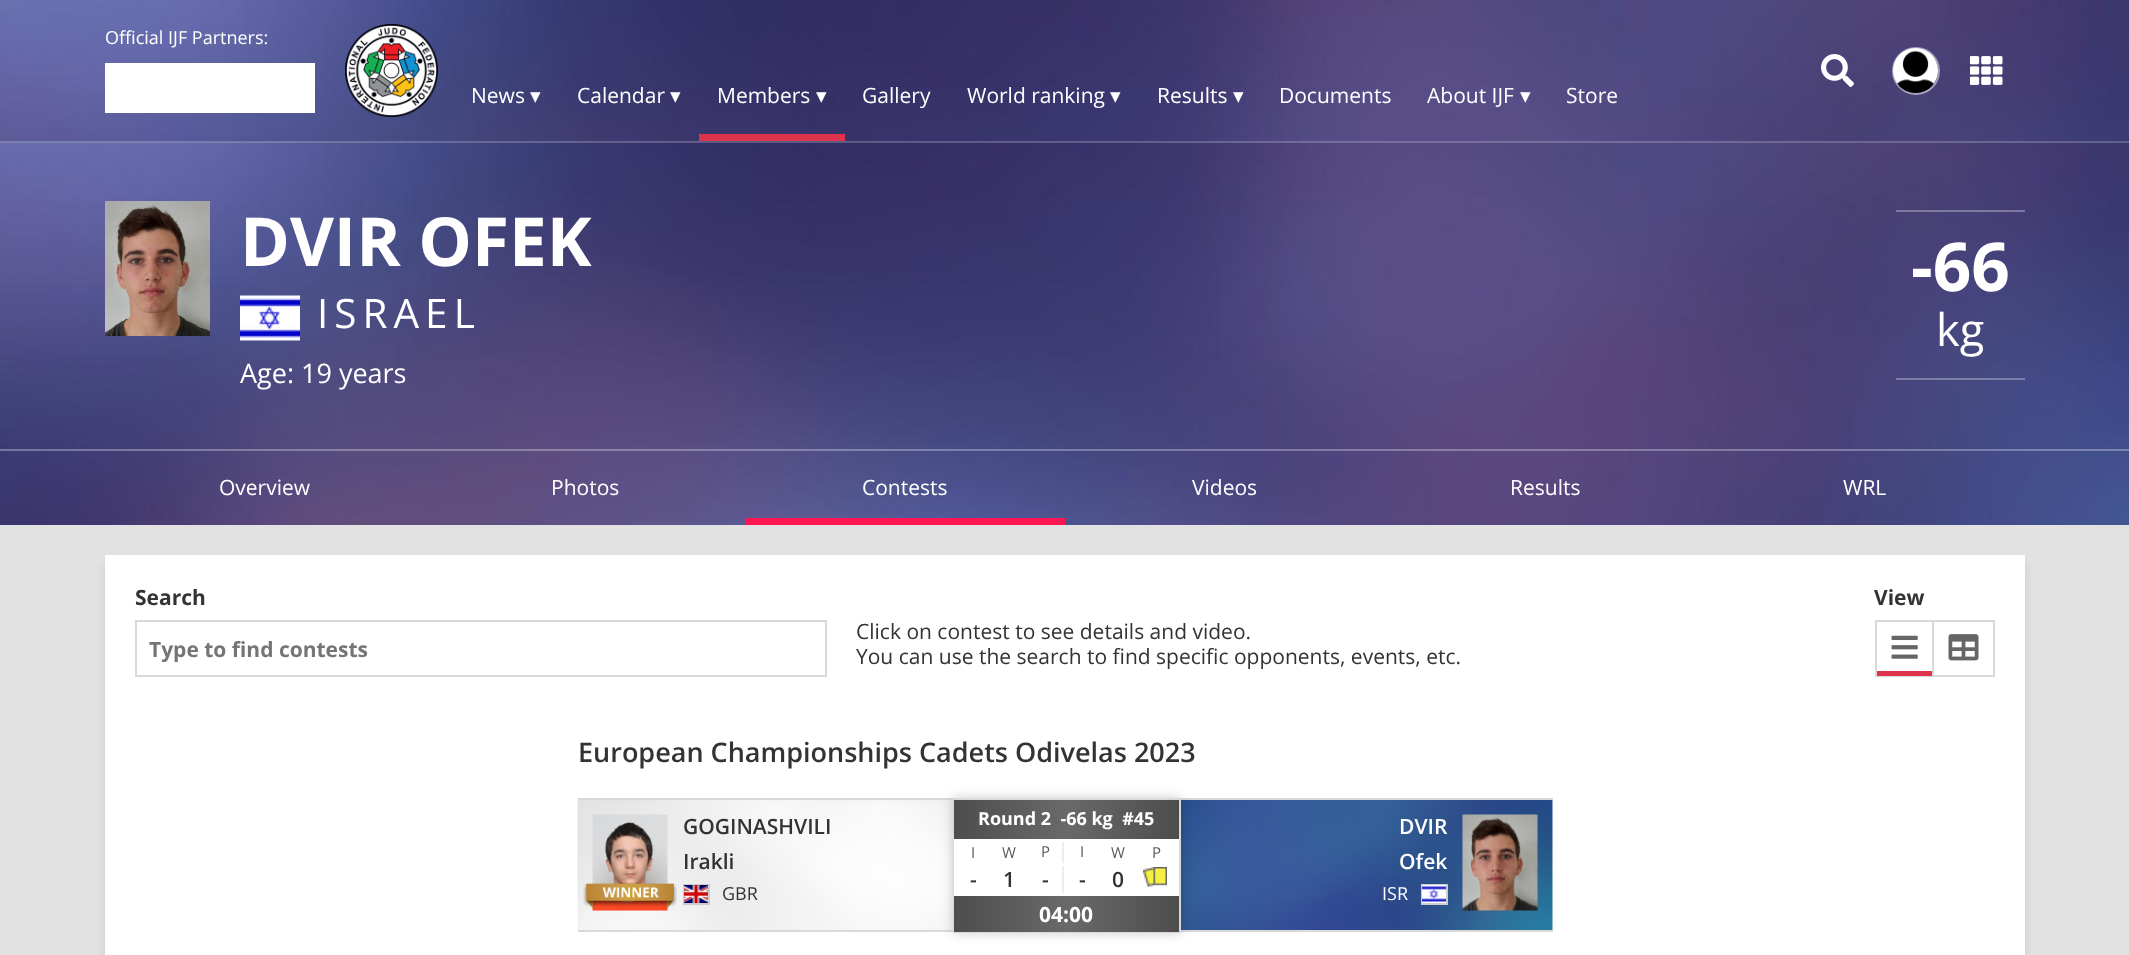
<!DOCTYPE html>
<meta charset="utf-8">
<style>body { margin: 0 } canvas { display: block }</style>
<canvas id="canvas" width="2129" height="955"></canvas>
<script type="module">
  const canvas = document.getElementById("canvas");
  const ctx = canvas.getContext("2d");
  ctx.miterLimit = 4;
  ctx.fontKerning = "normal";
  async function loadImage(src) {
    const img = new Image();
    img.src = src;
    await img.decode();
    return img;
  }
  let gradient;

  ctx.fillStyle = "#e2e2e2";
  ctx.fillRect(0, 0, 2129, 955);
  ctx.drawImage(await loadImage("img6.png"), 0, 142, 2129, 383);
  ctx.drawImage(await loadImage("img1.png"), 0, 0, 2129, 143);
  ctx.fillStyle = "rgba(255, 255, 255, 0.2)";
  ctx.fillRect(0, 141, 2129, 2);
  ctx.font = "18px Open Sans";
  ctx.fillStyle = "#ffffff";
  ctx.fillText("Official IJF Partners:", 105, 44);
  ctx.fillRect(105, 63, 210, 50);
  ctx.drawImage(await loadImage("img2.png"), 345, 24, 93, 93);
  ctx.drawImage(await loadImage("img3.png"), 1821, 54, 33, 33);
  ctx.beginPath();
  ctx.arc(1916, 71, 23, 0, Math.PI * 2);
  ctx.strokeStyle = "rgba(255, 255, 255, 0.5)";
  ctx.lineWidth = 2;
  ctx.stroke();
  ctx.drawImage(await loadImage("img4.png"), 1893, 48, 45, 45);
  ctx.drawImage(await loadImage("img5.png"), 1970, 56, 33, 29);
  ctx.font = "21px Open Sans";
  ctx.fillText("News", 471, 103);
  ctx.font = "21px DejaVu Sans";
  ctx.fillText("▾", 530, 103);
  ctx.font = "21px Open Sans";
  ctx.fillText("Calendar", 577, 103);
  ctx.font = "21px DejaVu Sans";
  ctx.fillText("▾", 670, 103);
  ctx.font = "21px Open Sans";
  ctx.fillText("Members", 717, 103);
  ctx.font = "21px DejaVu Sans";
  ctx.fillText("▾", 816, 103);
  ctx.fillStyle = "#dd344c";
  ctx.fillRect(699, 134, 146, 7);
  ctx.font = "21px Open Sans";
  ctx.fillStyle = "#ffffff";
  ctx.fillText("Gallery", 862, 103);
  ctx.fillText("World ranking", 967, 103);
  ctx.font = "21px DejaVu Sans";
  ctx.fillText("▾", 1110, 103);
  ctx.font = "21px Open Sans";
  ctx.fillText("Results", 1157, 103);
  ctx.font = "21px DejaVu Sans";
  ctx.fillText("▾", 1233, 103);
  ctx.font = "21px Open Sans";
  ctx.fillText("Documents", 1279, 103);
  ctx.fillText("About IJF", 1427, 103);
  ctx.font = "21px DejaVu Sans";
  ctx.fillText("▾", 1520, 103);
  ctx.font = "21px Open Sans";
  ctx.fillText("Store", 1566, 103);
  ctx.drawImage(await loadImage("img7.png"), 105, 201, 105, 135);
  ctx.font = "bold 67.5px Open Sans";
  ctx.fillText("DVIR OFEK", 240, 266);
  ctx.drawImage(await loadImage("img8.png"), 240, 295, 60, 46);
  ctx.letterSpacing = "6px";
  ctx.font = "40.5px Open Sans";
  ctx.fillText("ISRAEL", 317, 328);
  ctx.letterSpacing = "0px";
  ctx.font = "27px Open Sans";
  ctx.fillText("Age: 19 years", 240, 383);
  ctx.fillStyle = "rgba(255, 255, 255, 0.3)";
  ctx.fillRect(1896, 210, 129, 2);
  ctx.fillRect(1896, 378, 129, 2);
  ctx.font = "bold 67.5px Open Sans";
  ctx.fillStyle = "#ffffff";
  ctx.fillText("-66", 1911, 291);
  ctx.font = "45px Open Sans";
  ctx.fillText("kg", 1936, 346);
  ctx.fillStyle = "rgba(255, 255, 255, 0.3)";
  ctx.fillRect(0, 449, 2129, 2);
  ctx.font = "21px Open Sans";
  ctx.fillStyle = "#ffffff";
  ctx.fillText("Overview", 219, 495);
  ctx.fillText("Photos", 551, 495);
  ctx.fillText("Contests", 862, 495);
  ctx.fillStyle = "#ff1553";
  ctx.fillRect(746, 518, 319, 7);
  ctx.fillStyle = "#ffffff";
  ctx.fillText("Videos", 1192, 495);
  ctx.fillText("Results", 1510, 495);
  ctx.fillText("WRL", 1843, 495);
  ctx.fillStyle = "rgba(0, 0, 0, 0.1)";
  ctx.filter = "blur(4px)";
  ctx.beginPath();
  ctx.rect(105, 563, 1920, 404);
  ctx.fill();
  ctx.filter = "none";
  ctx.fillStyle = "#ffffff";
  ctx.fillRect(105, 555, 1920, 400);
  ctx.font = "bold 21px Open Sans";
  ctx.fillStyle = "#333333";
  ctx.fillText("Search", 135, 605);
  ctx.strokeStyle = "#d9d9d9";
  ctx.strokeRect(136, 621, 690, 55);
  ctx.fillStyle = "#757575";
  ctx.fillText("Type to find contests", 149, 657);
  ctx.fillStyle = "#333333";
  ctx.fillText("View", 1874, 605);
  ctx.fillStyle = "#d9d9d9";
  ctx.fillRect(1875, 620, 57, 2);
  ctx.fillRect(1875, 676, 57, 1);
  ctx.fillRect(1875, 620, 2, 57);
  ctx.drawImage(await loadImage("img9.png"), 1891, 635, 27, 24);
  ctx.fillStyle = "#dd344c";
  ctx.fillRect(1877, 671, 55, 5);
  ctx.strokeRect(1933, 621, 61, 55);
  ctx.drawImage(await loadImage("img10.png"), 1948, 634, 31, 27);
  ctx.font = "21px Open Sans";
  ctx.fillStyle = "#333333";
  ctx.fillText("Click on contest to see details and video.", 856, 639);
  ctx.fillText("You can use the search to find specific opponents, events, etc.", 856, 664);
  ctx.font = "600 27px Open Sans";
  ctx.fillText("European Championships Cadets Odivelas 2023", 578, 762);
  ctx.drawImage(await loadImage("img11.png"), 577, 798, 376, 134);
  ctx.fillStyle = "#d9d9d9";
  ctx.fillRect(578, 798, 375, 2);
  ctx.fillRect(578, 930, 375, 2);
  ctx.drawImage(await loadImage("img12.png"), 592, 814, 76, 97);
  ctx.drawImage(await loadImage("img13.png"), 583, 883, 94, 25);
  ctx.font = "600 21px Open Sans";
  ctx.fillStyle = "#333333";
  ctx.fillText("GOGINASHVILI", 683, 834);
  ctx.fillText("Irakli", 683, 869);
  ctx.strokeStyle = "#cccccc";
  ctx.strokeRect(684, 885, 25, 19);
  ctx.drawImage(await loadImage("img14.png"), 684, 885, 24, 18);
  ctx.font = "18px Open Sans";
  ctx.fillText("GBR", 722, 900);
  ctx.drawImage(await loadImage("img16.png"), 1181, 800, 372, 130);
  ctx.fillStyle = "#d9d9d9";
  ctx.fillRect(1181, 798, 372, 2);
  ctx.fillRect(1181, 930, 372, 2);
  ctx.fillStyle = "rgba(0, 0, 0, 0.2)";
  ctx.filter = "blur(6px)";
  ctx.beginPath();
  ctx.rect(953, 798, 228, 135);
  ctx.fill();
  ctx.filter = "none";
  ctx.strokeStyle = "#d9d9d9";
  ctx.strokeRect(954, 799, 226, 133);
  gradient = ctx.createLinearGradient(954, 819, 1179, 819);
  gradient.addColorStop(0, "#4d4d4d");
  gradient.addColorStop(0.5, "#696969");
  gradient.addColorStop(1, "#4d4d4d");
  ctx.fillStyle = gradient;
  ctx.fillRect(954, 800, 225, 39);
  ctx.font = "bold 18px Open Sans";
  ctx.fillStyle = "#ffffff";
  ctx.fillText("Round 2  -66 kg  #45", 978, 825);
  ctx.fillRect(954, 839, 225, 57);
  ctx.font = "15px Open Sans";
  ctx.fillStyle = "#595959";
  ctx.fillText("I", 971, 858);
  ctx.fillText("W", 1002, 858);
  ctx.fillStyle = "#ededed";
  ctx.fillRect(1062, 842, 2, 21);
  ctx.fillStyle = "#595959";
  ctx.fillText("P", 1041, 857);
  ctx.fillText("I", 1080, 857);
  ctx.fillText("W", 1111, 858);
  ctx.fillText("P", 1152, 858);
  ctx.font = "600 21px Open Sans";
  ctx.fillStyle = "#333333";
  ctx.fillText("-", 970, 887);
  ctx.fillText("1", 1003, 887);
  ctx.fillStyle = "#ededed";
  ctx.fillRect(1062, 866, 2, 27);
  ctx.fillStyle = "#333333";
  ctx.fillText("-", 1042, 887);
  ctx.fillText("-", 1079, 887);
  ctx.fillText("0", 1112, 887);
  ctx.drawImage(await loadImage("img15.png"), 1143, 867, 24, 20);
  gradient = ctx.createLinearGradient(954, 914, 1179, 914);
  gradient.addColorStop(0, "#4d4d4d");
  gradient.addColorStop(0.5, "#696969");
  gradient.addColorStop(1, "#4d4d4d");
  ctx.fillStyle = gradient;
  ctx.fillRect(954, 896, 225, 36);
  ctx.font = "bold 21px Open Sans";
  ctx.fillStyle = "#ffffff";
  ctx.fillText("04:00", 1039, 922);
  ctx.font = "600 21px Open Sans";
  ctx.fillText("DVIR", 1399, 834);
  ctx.fillText("Ofek", 1399, 869);
  ctx.font = "18px Open Sans";
  ctx.fillText("ISR", 1382, 900);
  ctx.strokeStyle = "#cccccc";
  ctx.strokeRect(1422, 885, 25, 19);
  ctx.drawImage(await loadImage("img17.png"), 1422, 885, 24, 18);
  ctx.drawImage(await loadImage("img18.png"), 1462, 814, 76, 97);
</script>
